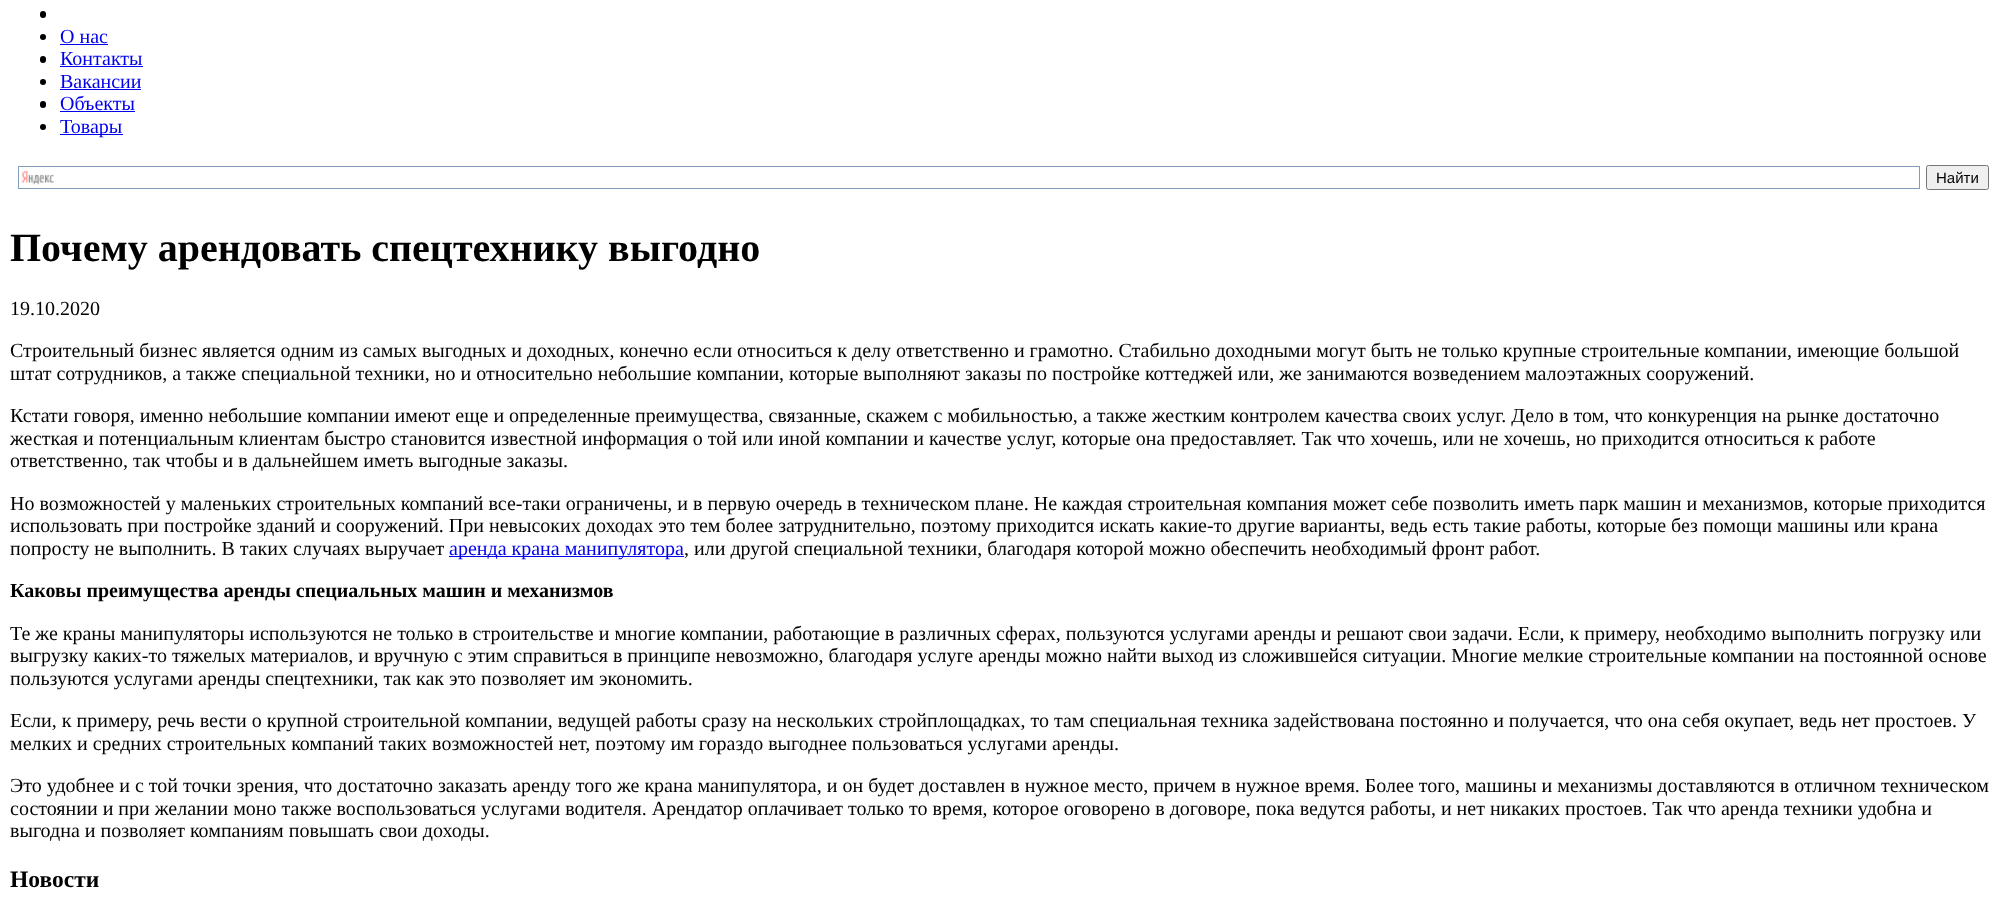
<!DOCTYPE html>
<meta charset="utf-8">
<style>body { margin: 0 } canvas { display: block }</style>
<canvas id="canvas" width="2006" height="908"></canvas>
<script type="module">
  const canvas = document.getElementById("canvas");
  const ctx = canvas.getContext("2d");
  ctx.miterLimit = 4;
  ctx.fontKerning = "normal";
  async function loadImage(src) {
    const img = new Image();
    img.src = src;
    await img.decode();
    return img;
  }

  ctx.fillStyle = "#ffffff";
  ctx.fillRect(0, 0, 2006, 908);
  ctx.fillStyle = "#000000";
  ctx.beginPath();
  ctx.roundRect(40, 11, 6, 7, 3);
  ctx.fill();
  ctx.beginPath();
  ctx.arc(43, 37, 3, 0, Math.PI * 2);
  ctx.fill();
  ctx.font = "20px Liberation Serif";
  ctx.fillStyle = "#0000ee";
  ctx.fillText("О нас", 60, 43);
  ctx.fillRect(60, 44, 48, 1);
  ctx.fillStyle = "#000000";
  ctx.beginPath();
  ctx.roundRect(40, 56, 6, 7, 3);
  ctx.fill();
  ctx.fillStyle = "#0000ee";
  ctx.fillText("Контакты", 60, 65);
  ctx.fillRect(60, 66, 83, 1);
  ctx.fillStyle = "#000000";
  ctx.beginPath();
  ctx.arc(43, 82, 3, 0, Math.PI * 2);
  ctx.fill();
  ctx.fillStyle = "#0000ee";
  ctx.fillText("Вакансии", 60, 88);
  ctx.fillRect(60, 89, 81, 1);
  ctx.fillStyle = "#000000";
  ctx.beginPath();
  ctx.roundRect(40, 101, 6, 7, 3);
  ctx.fill();
  ctx.fillStyle = "#0000ee";
  ctx.fillText("Объекты", 60, 110);
  ctx.fillRect(60, 111, 75, 1);
  ctx.fillStyle = "#000000";
  ctx.beginPath();
  ctx.arc(43, 127, 3, 0, Math.PI * 2);
  ctx.fill();
  ctx.fillStyle = "#0000ee";
  ctx.fillRect(60, 134, 63, 1);
  ctx.fillText("Товары", 60, 133);
  ctx.drawImage(await loadImage("img1.png"), 21, 171, 33, 14);
  ctx.strokeStyle = "#7f9db9";
  ctx.strokeRect(18.5, 166.5, 1901, 22);
  ctx.fillStyle = "#efefef";
  ctx.beginPath();
  ctx.roundRect(1926.5, 165.5, 62, 24, 2);
  ctx.fill();
  ctx.strokeStyle = "#767676";
  ctx.stroke();
  ctx.font = "15px Liberation Sans";
  ctx.fillStyle = "#000000";
  ctx.fillText("Найти", 1936, 183);
  ctx.font = "bold 40px Liberation Serif";
  ctx.fillText("Почему арендовать спецтехнику выгодно", 10, 261);
  ctx.font = "20px Liberation Serif";
  ctx.fillText("19.10.2020", 10, 315);
  ctx.fillText("Строительный бизнес является одним из самых выгодных и доходных, конечно если относиться к делу ответственно и грамотно. Стабильно доходными могут быть не только крупные строительные компании, имеющие большой", 10, 357);
  ctx.fillText("штат сотрудников, а также специальной техники, но и относительно небольшие компании, которые выполняют заказы по постройке коттеджей или, же занимаются возведением малоэтажных сооружений.", 10, 380);
  ctx.fillText("Кстати говоря, именно небольшие компании имеют еще и определенные преимущества, связанные, скажем с мобильностью, а также жестким контролем качества своих услуг. Дело в том, что конкуренция на рынке достаточно", 10, 422);
  ctx.fillText("жесткая и потенциальным клиентам быстро становится известной информация о той или иной компании и качестве услуг, которые она предоставляет. Так что хочешь, или не хочешь, но приходится относиться к работе", 10, 445);
  ctx.fillText("ответственно, так чтобы и в дальнейшем иметь выгодные заказы.", 10, 467);
  ctx.fillText("Но возможностей у маленьких строительных компаний все-таки ограничены, и в первую очередь в техническом плане. Не каждая строительная компания может себе позволить иметь парк машин и механизмов, которые приходится", 10, 510);
  ctx.fillText("использовать при постройке зданий и сооружений. При невысоких доходах это тем более затруднительно, поэтому приходится искать какие-то другие варианты, ведь есть такие работы, которые без помощи машины или крана", 10, 532);
  ctx.fillText("попросту не выполнить. В таких случаях выручает", 10, 555);
  ctx.fillStyle = "#0000ee";
  ctx.fillRect(449, 556, 235, 1);
  ctx.fillText("аренда крана манипулятора", 449, 555);
  ctx.fillStyle = "#000000";
  ctx.fillText(", или другой специальной техники, благодаря которой можно обеспечить необходимый фронт работ.", 684, 555);
  ctx.font = "bold 20px Liberation Serif";
  ctx.fillText("Каковы преимущества аренды специальных машин и механизмов", 10, 597);
  ctx.font = "20px Liberation Serif";
  ctx.fillText("Те же краны манипуляторы используются не только в строительстве и многие компании, работающие в различных сферах, пользуются услугами аренды и решают свои задачи. Если, к примеру, необходимо выполнить погрузку или", 10, 640);
  ctx.fillText("выгрузку каких-то тяжелых материалов, и вручную с этим справиться в принципе невозможно, благодаря услуге аренды можно найти выход из сложившейся ситуации. Многие мелкие строительные компании на постоянной основе", 10, 662);
  ctx.fillText("пользуются услугами аренды спецтехники, так как это позволяет им экономить.", 10, 685);
  ctx.fillText("Если, к примеру, речь вести о крупной строительной компании, ведущей работы сразу на нескольких стройплощадках, то там специальная техника задействована постоянно и получается, что она себя окупает, ведь нет простоев. У", 10, 727);
  ctx.fillText("мелких и средних строительных компаний таких возможностей нет, поэтому им гораздо выгоднее пользоваться услугами аренды.", 10, 750);
  ctx.fillText("Это удобнее и с той точки зрения, что достаточно заказать аренду того же крана манипулятора, и он будет доставлен в нужное место, причем в нужное время. Более того, машины и механизмы доставляются в отличном техническом", 10, 792);
  ctx.fillText("состоянии и при желании моно также воспользоваться услугами водителя. Арендатор оплачивает только то время, которое оговорено в договоре, пока ведутся работы, и нет никаких простоев. Так что аренда техники удобна и", 10, 815);
  ctx.fillText("выгодна и позволяет компаниям повышать свои доходы.", 10, 837);
  ctx.font = "bold 23.5px Liberation Serif";
  ctx.fillText("Новости", 10, 887);
</script>
